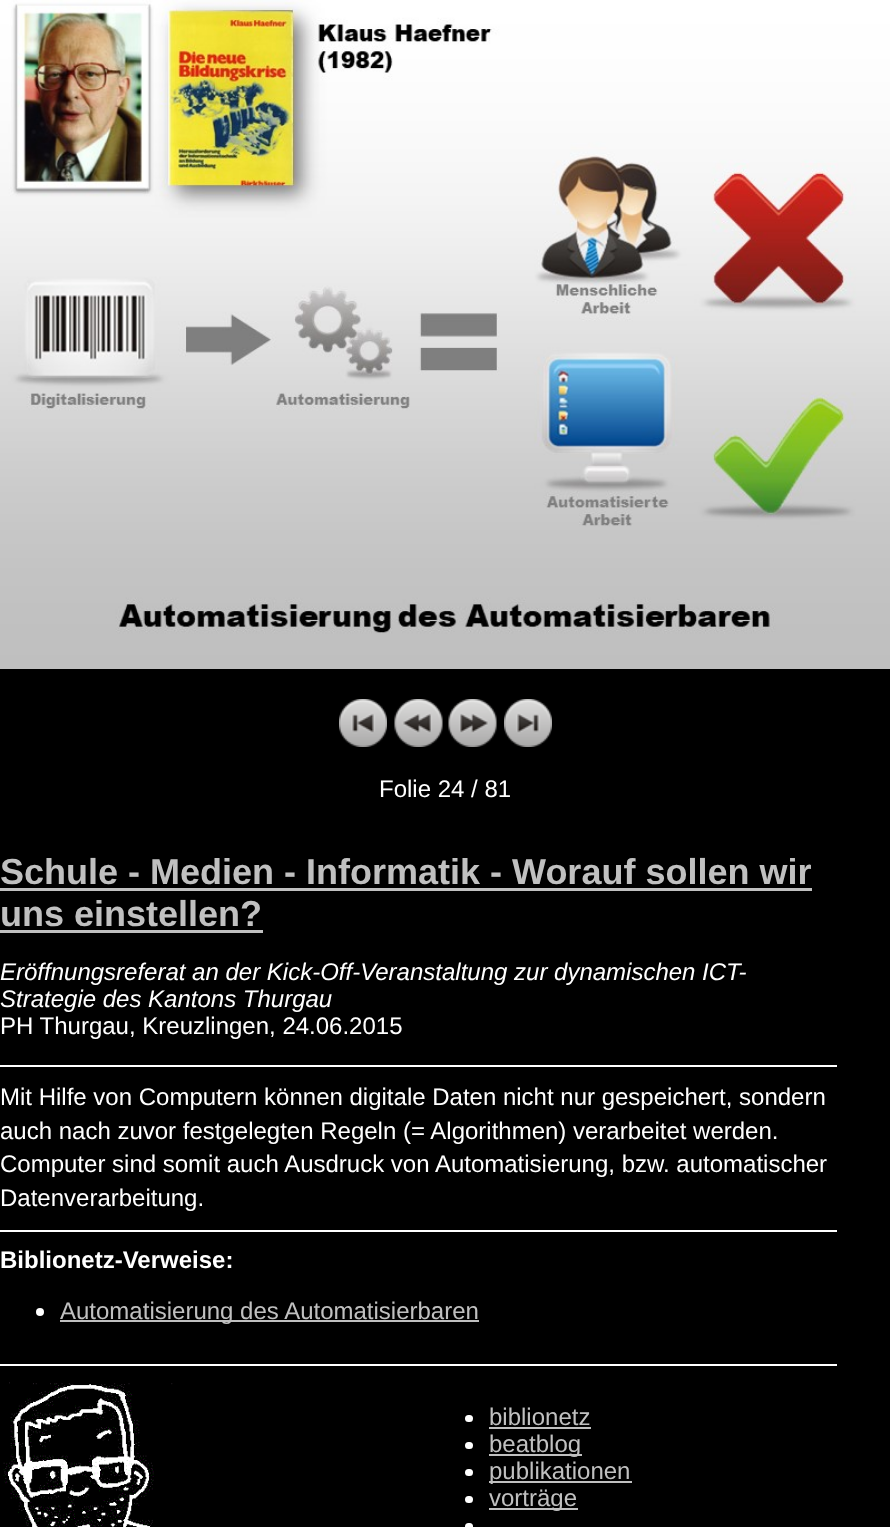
<!DOCTYPE html>
<meta charset="utf-8">
<style>body { margin: 0 } canvas { display: block }</style>
<canvas id="canvas" width="890" height="1527"></canvas>
<script type="module">
  const canvas = document.getElementById("canvas");
  const ctx = canvas.getContext("2d");
  ctx.miterLimit = 4;
  ctx.fontKerning = "normal";
  async function loadImage(src) {
    const img = new Image();
    img.src = src;
    await img.decode();
    return img;
  }

  ctx.fillStyle = "#000000";
  ctx.fillRect(0, 0, 890, 1527);
  ctx.drawImage(await loadImage("img1.png"), 0, 0, 890, 669);
  ctx.drawImage(await loadImage("img2.png"), 339, 699, 48, 48);
  ctx.drawImage(await loadImage("img3.png"), 394, 699, 49, 48);
  ctx.drawImage(await loadImage("img4.png"), 448, 699, 49, 48);
  ctx.drawImage(await loadImage("img5.png"), 504, 699, 48, 48);
  ctx.font = "24px Liberation Sans";
  ctx.fillStyle = "#ffffff";
  ctx.fillText("Folie 24 / 81", 379, 797);
  ctx.font = "bold 36px Liberation Sans";
  ctx.fillStyle = "#c0c0c0";
  ctx.fillText("Schule - Medien - Informatik - Worauf sollen wir", 0, 884);
  ctx.fillRect(0, 888, 812, 3);
  ctx.fillText("uns einstellen?", 0, 926);
  ctx.fillRect(0, 930, 263, 3);
  ctx.font = "italic 24px Liberation Sans";
  ctx.fillStyle = "#ffffff";
  ctx.fillText("Eröffnungsreferat an der Kick-Off-Veranstaltung zur dynamischen ICT-", 0, 980);
  ctx.fillText("Strategie des Kantons Thurgau", 0, 1007);
  ctx.font = "24px Liberation Sans";
  ctx.fillText("PH Thurgau, Kreuzlingen, 24.06.2015", 0, 1034);
  ctx.fillRect(0, 1065, 837, 2);
  ctx.fillText("Mit Hilfe von Computern können digitale Daten nicht nur gespeichert, sondern", 0, 1105);
  ctx.fillText("auch nach zuvor festgelegten Regeln (= Algorithmen) verarbeitet werden.", 0, 1139);
  ctx.fillText("Computer sind somit auch Ausdruck von Automatisierung, bzw. automatischer", 0, 1172);
  ctx.fillText("Datenverarbeitung.", 0, 1206);
  ctx.fillRect(0, 1230, 837, 2);
  ctx.font = "bold 24px Liberation Sans";
  ctx.fillText("Biblionetz-Verweise:", 0, 1268);
  ctx.beginPath();
  ctx.arc(40, 1312, 4, 0, Math.PI * 2);
  ctx.fill();
  ctx.fillStyle = "#c0c0c0";
  ctx.fillRect(60, 1320, 419, 2);
  ctx.font = "24px Liberation Sans";
  ctx.fillText("Automatisierung des Automatisierbaren", 60, 1319);
  ctx.fillStyle = "#ffffff";
  ctx.fillRect(0, 1364, 837, 2);
  ctx.drawImage(await loadImage("img6.png"), 3, 1382, 170, 145);
  ctx.beginPath();
  ctx.roundRect(465, 1415, 8, 7, 3.5);
  ctx.fill();
  ctx.fillStyle = "#c0c0c0";
  ctx.fillText("biblionetz", 489, 1425);
  ctx.fillRect(489, 1427, 102, 2);
  ctx.fillStyle = "#ffffff";
  ctx.beginPath();
  ctx.roundRect(465, 1442, 8, 7, 3.5);
  ctx.fill();
  ctx.fillStyle = "#c0c0c0";
  ctx.fillRect(489, 1454, 93, 2);
  ctx.fillText("beatblog", 489, 1452);
  ctx.fillStyle = "#ffffff";
  ctx.beginPath();
  ctx.roundRect(465, 1469, 8, 7, 3.5);
  ctx.fill();
  ctx.fillStyle = "#c0c0c0";
  ctx.fillRect(489, 1481, 143, 2);
  ctx.fillText("publikationen", 489, 1479);
  ctx.fillStyle = "#ffffff";
  ctx.beginPath();
  ctx.roundRect(465, 1496, 8, 7, 3.5);
  ctx.fill();
  ctx.fillStyle = "#c0c0c0";
  ctx.fillRect(489, 1508, 89, 2);
  ctx.fillText("vorträge", 489, 1506);
  ctx.fillStyle = "#ffffff";
  ctx.beginPath();
  ctx.roundRect(465, 1523, 8, 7, 3.5);
  ctx.fill();
</script>
